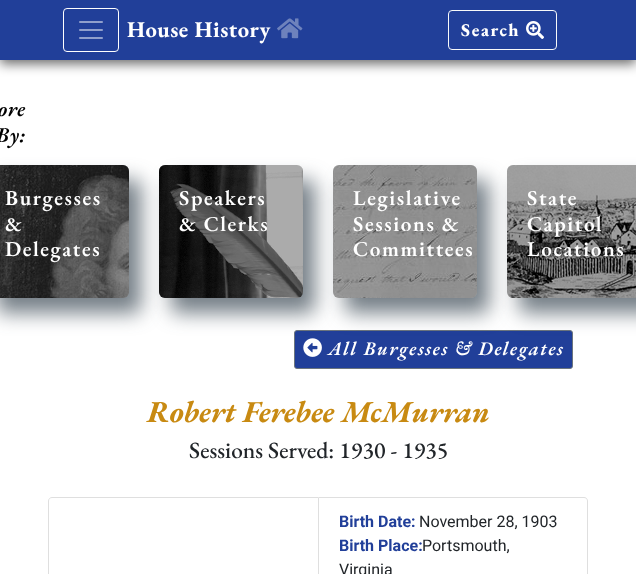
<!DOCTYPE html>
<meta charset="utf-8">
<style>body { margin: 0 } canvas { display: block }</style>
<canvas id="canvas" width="636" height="574"></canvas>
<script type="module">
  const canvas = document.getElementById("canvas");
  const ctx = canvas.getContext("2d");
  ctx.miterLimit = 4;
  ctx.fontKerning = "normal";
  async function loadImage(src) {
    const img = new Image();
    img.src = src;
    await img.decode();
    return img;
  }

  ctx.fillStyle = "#ffffff";
  ctx.fillRect(0, 0, 636, 574);
  ctx.fillStyle = "rgba(0, 0, 0, 0.58)";
  ctx.filter = "blur(6px)";
  ctx.beginPath();
  ctx.rect(0, 4, 636, 60);
  ctx.fill();
  ctx.filter = "none";
  ctx.fillStyle = "#213f99";
  ctx.fillRect(0, 0, 636, 60);
  ctx.beginPath();
  ctx.roundRect(63.5, 8.5, 55, 43, 3.5);
  ctx.strokeStyle = "#ffffff";
  ctx.stroke();
  ctx.drawImage(await loadImage("img1.png"), 79, 21, 24, 18);
  ctx.letterSpacing = "0.5px";
  ctx.font = "bold 22.5px EB Garamond";
  ctx.fillStyle = "#ffffff";
  ctx.fillText("House History", 127, 37);
  ctx.drawImage(await loadImage("img2.png"), 277, 18, 26, 21);
  ctx.beginPath();
  ctx.roundRect(448.5, 10.5, 108, 39, 3.5);
  ctx.strokeStyle = "#f8f9fa";
  ctx.stroke();
  ctx.letterSpacing = "1.5px";
  ctx.font = "800 18px EB Garamond";
  ctx.fillText("Search", 461, 36);
  ctx.drawImage(await loadImage("img3.png"), 526, 21, 18, 18);
  ctx.letterSpacing = "0.5px";
  ctx.font = "italic 600 21.25px EB Garamond";
  ctx.fillStyle = "#000000";
  ctx.fillText("ore", -2, 116);
  ctx.fillText("By:", -4, 142);
  ctx.fillStyle = "rgba(46, 61, 73, 0.66)";
  ctx.filter = "blur(10px)";
  ctx.beginPath();
  ctx.roundRect(-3, 180, 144, 133, 6);
  ctx.fill();
  ctx.filter = "none";
  ctx.drawImage(await loadImage("img4.png"), 0, 165, 129, 133);
  ctx.fillStyle = "rgba(0, 0, 0, 0.33)";
  ctx.beginPath();
  ctx.roundRect(-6, 165, 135, 133, 6);
  ctx.fill();
  ctx.letterSpacing = "1.6px";
  ctx.font = "600 21.25px EB Garamond";
  ctx.fillStyle = "#ffffff";
  ctx.fillText("Burgesses", 5, 205);
  ctx.fillText("&", 5, 231);
  ctx.fillText("Delegates", 5, 256);
  ctx.fillStyle = "#213f99";
  ctx.beginPath();
  ctx.roundRect(294.5, 330.5, 278, 38, 2.5);
  ctx.fill();
  ctx.strokeStyle = "#6c757d";
  ctx.stroke();
  ctx.drawImage(await loadImage("img8.png"), 303, 338, 19, 19);
  ctx.fillStyle = "rgba(46, 61, 73, 0.66)";
  ctx.filter = "blur(10px)";
  ctx.beginPath();
  ctx.roundRect(171, 180, 144, 133, 6);
  ctx.fill();
  ctx.filter = "none";
  ctx.drawImage(await loadImage("img5.png"), 159, 165, 144, 133);
  ctx.fillStyle = "rgba(0, 0, 0, 0.33)";
  ctx.beginPath();
  ctx.roundRect(159, 165, 144, 133, 6);
  ctx.fill();
  ctx.fillStyle = "#ffffff";
  ctx.fillText("Speakers", 179, 205);
  ctx.fillText("& Clerks", 179, 231);
  ctx.fillStyle = "rgba(46, 61, 73, 0.66)";
  ctx.filter = "blur(10px)";
  ctx.beginPath();
  ctx.roundRect(345, 180, 144, 133, 6);
  ctx.fill();
  ctx.filter = "none";
  ctx.drawImage(await loadImage("img6.png"), 333, 165, 144, 133);
  ctx.fillStyle = "rgba(0, 0, 0, 0.33)";
  ctx.beginPath();
  ctx.roundRect(333, 165, 144, 133, 6);
  ctx.fill();
  ctx.fillStyle = "#ffffff";
  ctx.fillText("Legislative", 353, 205);
  ctx.fillText("Sessions &", 353, 231);
  ctx.fillText("Committees", 353, 256);
  ctx.fillStyle = "rgba(46, 61, 73, 0.66)";
  ctx.filter = "blur(10px)";
  ctx.beginPath();
  ctx.roundRect(519, 180, 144, 133, 6);
  ctx.fill();
  ctx.filter = "none";
  ctx.drawImage(await loadImage("img7.png"), 507, 165, 129, 133);
  ctx.fillStyle = "rgba(0, 0, 0, 0.33)";
  ctx.beginPath();
  ctx.roundRect(507, 165, 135, 133, 6);
  ctx.fill();
  ctx.fillStyle = "#ffffff";
  ctx.fillText("State", 527, 205);
  ctx.fillText("Capitol", 527, 231);
  ctx.fillText("Locations", 527, 256);
  ctx.font = "italic 600 19.25px EB Garamond";
  ctx.fillText("All Burgesses & Delegates", 328, 355);
  ctx.letterSpacing = "0px";
  ctx.font = "italic bold 30.4px EB Garamond";
  ctx.fillStyle = "#c88a12";
  ctx.fillText("Robert Ferebee McMurran", 147, 422);
  ctx.font = "500 23.25px EB Garamond";
  ctx.fillStyle = "#212529";
  ctx.fillText("Sessions Served: 1930 - 1935", 189, 458);
  ctx.beginPath();
  ctx.moveTo(52, 497.5);
  ctx.lineTo(318.5, 497.5);
  ctx.lineTo(318.5, 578.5);
  ctx.lineTo(52, 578.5);
  ctx.bezierCurveTo(50, 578.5, 48.5, 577, 48.5, 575);
  ctx.lineTo(48.5, 501);
  ctx.bezierCurveTo(48.5, 499, 50, 497.5, 52, 497.5);
  ctx.closePath();
  ctx.strokeStyle = "#dfdfdf";
  ctx.stroke();
  ctx.fillStyle = "#dfdfdf";
  ctx.beginPath();
  ctx.moveTo(319, 497);
  ctx.lineTo(584, 497);
  ctx.bezierCurveTo(586, 497, 588, 499, 588, 501);
  ctx.lineTo(588, 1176);
  ctx.bezierCurveTo(588, 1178, 586, 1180, 584, 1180);
  ctx.lineTo(319, 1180);
  ctx.closePath();
  ctx.moveTo(319, 498);
  ctx.lineTo(584, 498);
  ctx.bezierCurveTo(586, 498, 587, 499, 587, 501);
  ctx.lineTo(587, 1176);
  ctx.bezierCurveTo(587, 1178, 586, 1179, 584, 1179);
  ctx.lineTo(319, 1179);
  ctx.closePath();
  ctx.fill("evenodd");
  ctx.font = "bold 16px Roboto";
  ctx.fillStyle = "#213f99";
  ctx.fillText("Birth Date:", 339, 527);
  ctx.font = "16px Roboto";
  ctx.fillStyle = "#212529";
  ctx.fillText("November 28, 1903", 419, 527);
  ctx.font = "bold 16px Roboto";
  ctx.fillStyle = "#213f99";
  ctx.fillText("Birth Place:", 339, 551);
  ctx.font = "16px Roboto";
  ctx.fillStyle = "#212529";
  ctx.fillText("Portsmouth,", 422, 551);
  ctx.fillText("Virginia", 339, 575);
</script>
